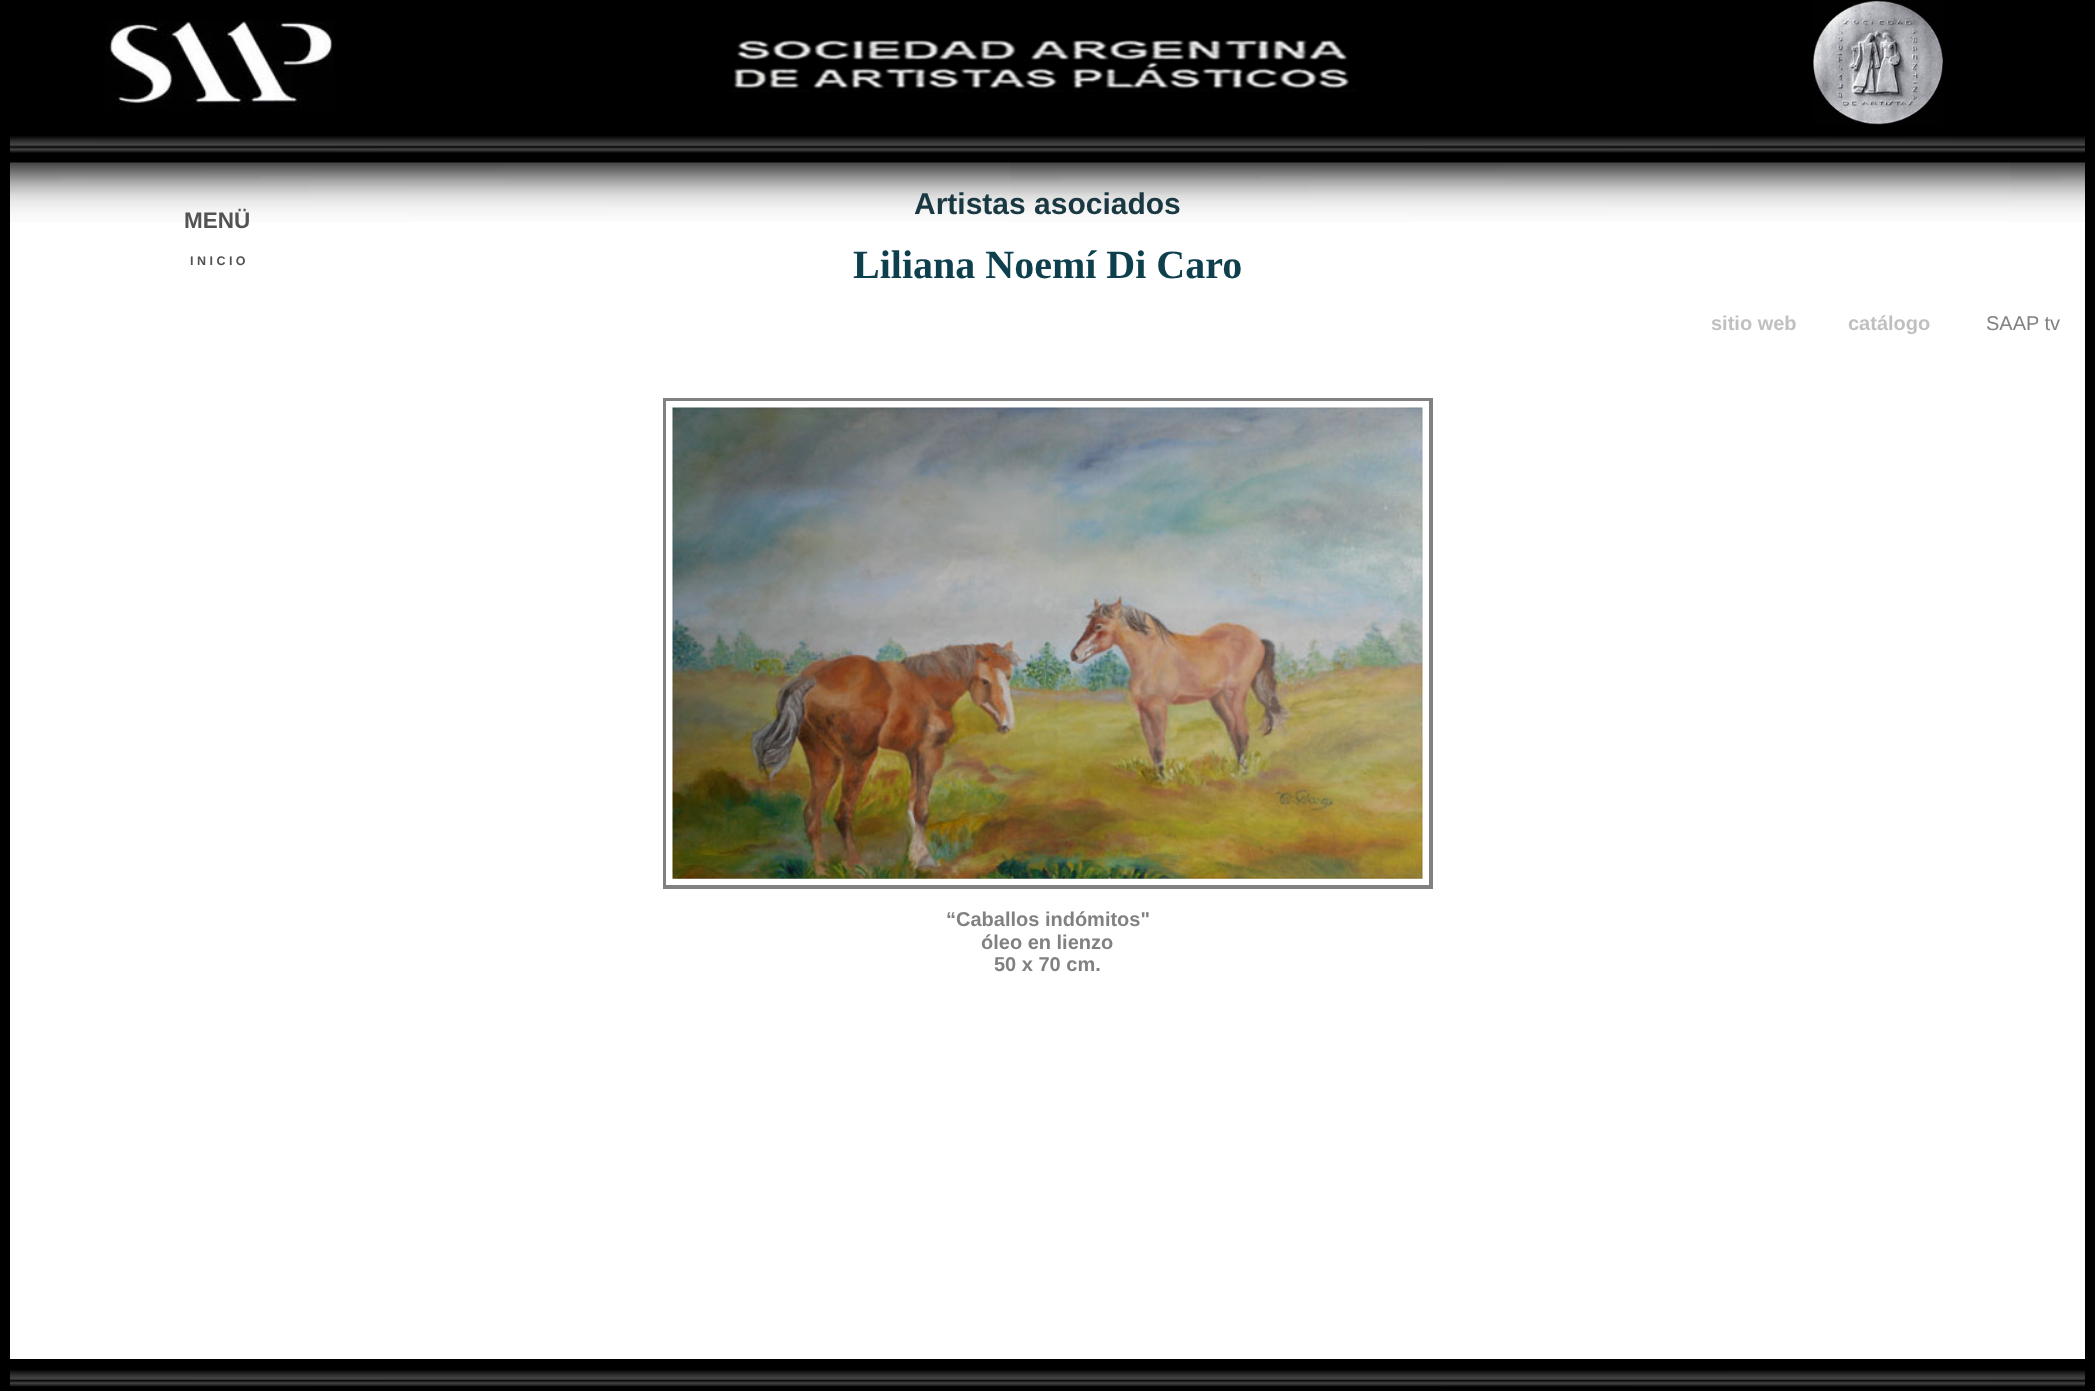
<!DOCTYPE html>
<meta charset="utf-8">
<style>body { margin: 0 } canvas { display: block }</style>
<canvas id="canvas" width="2095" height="1391"></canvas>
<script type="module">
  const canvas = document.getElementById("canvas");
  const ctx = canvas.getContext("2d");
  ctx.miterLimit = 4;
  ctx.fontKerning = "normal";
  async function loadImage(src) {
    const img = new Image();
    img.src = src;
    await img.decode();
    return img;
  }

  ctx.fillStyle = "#000000";
  ctx.fillRect(0, 0, 2095, 1391);
  ctx.drawImage(await loadImage("img1.png"), 105, 20, 229, 90);
  ctx.drawImage(await loadImage("img2.png"), 732, 40, 625, 52);
  ctx.drawImage(await loadImage("img3.png"), 1812, 0, 132, 125);
  ctx.drawImage(await loadImage("img4.png"), 10, 136, 2075, 17);
  ctx.fillStyle = "#ffffff";
  ctx.fillRect(10, 222, 2075, 1137);
  ctx.drawImage(await loadImage("img5.png"), 10, 162, 2075, 60);
  ctx.font = "bold 22.5px Liberation Sans";
  ctx.fillStyle = "#535353";
  ctx.fillText("MENÜ", 184, 228);
  ctx.font = "bold 12.5px Liberation Sans";
  ctx.fillText("I N I C I O", 190, 265);
  ctx.font = "bold 30px Liberation Sans";
  ctx.fillStyle = "#1a3842";
  ctx.fillText("Artistas asociados", 914, 214);
  ctx.font = "bold 40px Liberation Serif";
  ctx.fillStyle = "#0d3f4d";
  ctx.fillText("Liliana Noemí Di Caro", 853, 278);
  ctx.font = "bold 20px Liberation Sans";
  ctx.fillStyle = "#c0c0c0";
  ctx.fillText("sitio web", 1711, 330);
  ctx.fillText("catálogo", 1848, 330);
  ctx.font = "20px Liberation Sans";
  ctx.fillStyle = "#818181";
  ctx.fillText("SAAP tv", 1986, 330);
  ctx.strokeStyle = "#818181";
  ctx.lineWidth = 3;
  ctx.strokeRect(664.5, 399.5, 767, 488);
  ctx.lineWidth = 1;
  ctx.strokeRect(665.5, 400.5, 764, 485);
  ctx.drawImage(await loadImage("img6.png"), 672, 407, 751, 472);
  ctx.font = "bold 20px Liberation Sans";
  ctx.fillText("“Caballos indómitos\"", 946, 926);
  ctx.fillText("óleo en lienzo", 981, 949);
  ctx.fillText("50 x 70 cm.", 994, 971);
  ctx.drawImage(await loadImage("img7.png"), 10, 1370, 2075, 17);
</script>
